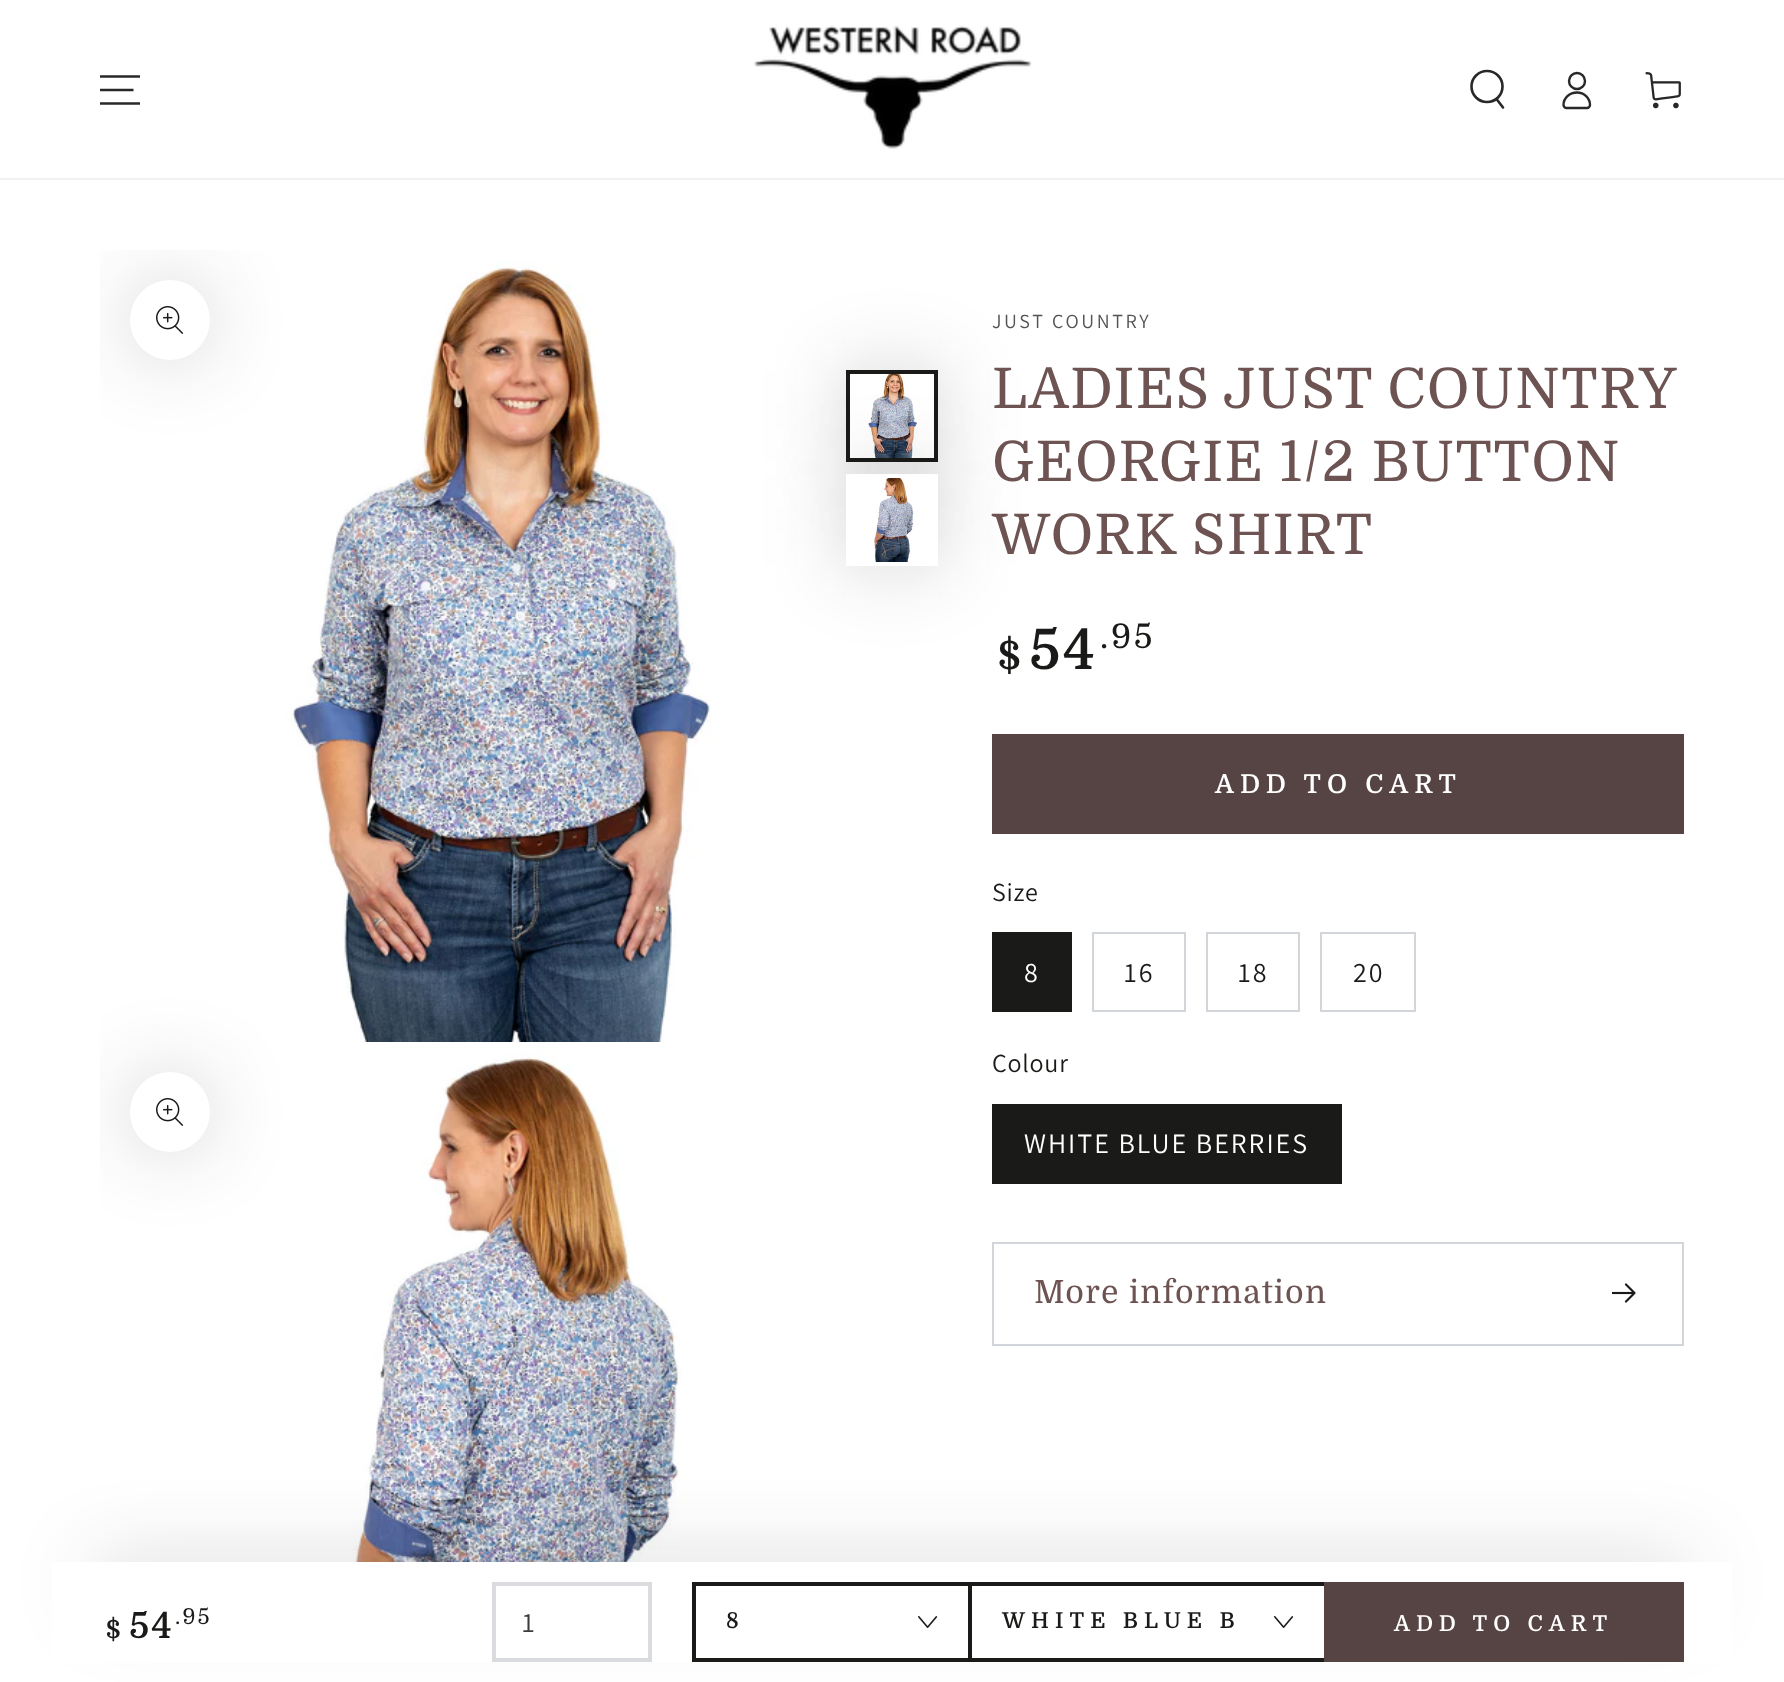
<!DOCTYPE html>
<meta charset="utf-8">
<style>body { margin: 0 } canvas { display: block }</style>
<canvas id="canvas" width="1784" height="1682"></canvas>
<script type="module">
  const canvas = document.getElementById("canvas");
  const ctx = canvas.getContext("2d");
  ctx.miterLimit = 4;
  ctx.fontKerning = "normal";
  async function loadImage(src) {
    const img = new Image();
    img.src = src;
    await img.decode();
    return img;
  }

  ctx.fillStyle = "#ffffff";
  ctx.fillRect(0, 0, 1784, 1682);
  ctx.drawImage(await loadImage("img4.png"), 100, 250, 792, 792);
  ctx.save();
  ctx.beginPath();
  ctx.rect(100, 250, 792, 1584);
  ctx.clip();
  ctx.fillStyle = "rgba(26, 27, 24, 0.2)";
  ctx.filter = "blur(40px)";
  ctx.beginPath();
  ctx.roundRect(130, 280, 80, 80, 40);
  ctx.fill();
  ctx.filter = "none";
  ctx.restore();
  ctx.fillStyle = "#f2f2f4";
  ctx.fillRect(0, 178, 1784, 2);
  ctx.beginPath();
  ctx.moveTo(100, 103.5);
  ctx.lineTo(140, 103.5);
  ctx.moveTo(100, 90);
  ctx.lineTo(133.5, 90);
  ctx.moveTo(100, 76.5);
  ctx.lineTo(140, 76.5);
  ctx.strokeStyle = "#282828";
  ctx.lineWidth = 2.5;
  ctx.stroke();
  ctx.drawImage(await loadImage("img1.png"), 753, 25, 279, 124);
  ctx.beginPath();
  ctx.arc(1487, 86.5, 15.5, 0, Math.PI * 2);
  ctx.lineWidth = 2.6;
  ctx.stroke();
  ctx.beginPath();
  ctx.moveTo(1496.5, 99);
  ctx.lineTo(1503, 107.5);
  ctx.lineCap = "round";
  ctx.stroke();
  ctx.beginPath();
  ctx.moveTo(1577, 92.5);
  ctx.bezierCurveTo(1569.5, 92.5, 1563.5, 98, 1563.5, 105);
  ctx.bezierCurveTo(1563.5, 106.5, 1565, 108, 1566.5, 108);
  ctx.lineTo(1587, 108);
  ctx.bezierCurveTo(1588.5, 108, 1590, 106.5, 1590, 105);
  ctx.bezierCurveTo(1590, 98, 1584, 92.5, 1577, 92.5);
  ctx.closePath();
  ctx.lineWidth = 2.4;
  ctx.lineCap = "butt";
  ctx.stroke();
  ctx.beginPath();
  ctx.arc(1577, 81, 8, 0, Math.PI * 2);
  ctx.stroke();
  ctx.drawImage(await loadImage("img2.png"), 1645, 72, 36, 37);
  ctx.fillStyle = "#ffffff";
  ctx.beginPath();
  ctx.arc(170, 320, 40, 0, Math.PI * 2);
  ctx.fill();
  ctx.drawImage(await loadImage("img3.png"), 156, 306, 28, 28);
  ctx.drawImage(await loadImage("img5.png"), 100, 1042, 792, 520);
  ctx.save();
  ctx.beginPath();
  ctx.rect(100, 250, 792, 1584);
  ctx.clip();
  ctx.fillStyle = "rgba(26, 27, 24, 0.2)";
  ctx.filter = "blur(40px)";
  ctx.beginPath();
  ctx.roundRect(130, 1072, 80, 80, 40);
  ctx.fill();
  ctx.filter = "none";
  ctx.restore();
  ctx.beginPath();
  ctx.arc(170, 1112, 40, 0, Math.PI * 2);
  ctx.fill();
  ctx.drawImage(await loadImage("img3.png"), 156, 1098, 28, 28);
  ctx.fillStyle = "rgba(26, 27, 24, 0.2)";
  ctx.filter = "blur(40px)";
  ctx.beginPath();
  ctx.rect(846, 370, 92, 92);
  ctx.fill();
  ctx.filter = "none";
  ctx.drawImage(await loadImage("img6.png"), 850, 374, 84, 84);
  ctx.strokeStyle = "#1a1b18";
  ctx.lineWidth = 4;
  ctx.strokeRect(848, 372, 88, 88);
  ctx.filter = "blur(40px)";
  ctx.beginPath();
  ctx.rect(846, 474, 92, 92);
  ctx.fill();
  ctx.filter = "none";
  ctx.drawImage(await loadImage("img7.png"), 850, 478, 84, 84);
  ctx.strokeStyle = "#ffffff";
  ctx.strokeRect(848, 476, 88, 88);
  ctx.letterSpacing = "2.6px";
  ctx.font = "20px Assistant";
  ctx.fillStyle = "#535452";
  ctx.fillText("JUST COUNTRY", 992, 328);
  ctx.letterSpacing = "1.25px";
  ctx.wordSpacing = "-1px";
  ctx.font = "56px Domine";
  ctx.fillStyle = "#6e5353";
  ctx.fillText("LADIES JUST COUNTRY", 992, 408);
  ctx.wordSpacing = "0px";
  ctx.fillText("GEORGIE 1/2 BUTTON", 992, 481);
  ctx.fillText("WORK SHIRT", 992, 554);
  ctx.letterSpacing = "2.6px";
  ctx.font = "600 39px Domine";
  ctx.fillStyle = "#1a1b18";
  ctx.fillText("$", 998, 669);
  ctx.font = "600 56px Domine";
  ctx.fillText("54", 1029, 669);
  ctx.font = "34px Domine";
  ctx.fillText(".95", 1100, 648);
  ctx.fillStyle = "#564343";
  ctx.fillRect(992, 734, 692, 100);
  ctx.letterSpacing = "6px";
  ctx.font = "600 26px Domine";
  ctx.fillStyle = "#ffffff";
  ctx.fillText("ADD TO CART", 1215, 793);
  ctx.letterSpacing = "0.75px";
  ctx.font = "26px Assistant";
  ctx.fillStyle = "#1a1b18";
  ctx.fillText("Size", 992, 901);
  ctx.fillRect(992, 932, 80, 80);
  ctx.letterSpacing = "2px";
  ctx.font = "28px Assistant";
  ctx.fillStyle = "#ffffff";
  ctx.fillText("8", 1024, 982);
  ctx.strokeStyle = "#d2d5d9";
  ctx.lineWidth = 2;
  ctx.strokeRect(1093, 933, 92, 78);
  ctx.fillStyle = "#1a1b18";
  ctx.fillText("16", 1124, 982);
  ctx.strokeRect(1207, 933, 92, 78);
  ctx.fillText("18", 1238, 982);
  ctx.strokeRect(1321, 933, 94, 78);
  ctx.fillText("20", 1353, 982);
  ctx.letterSpacing = "0.75px";
  ctx.font = "26px Assistant";
  ctx.fillText("Colour", 992, 1072);
  ctx.fillRect(992, 1104, 350, 80);
  ctx.letterSpacing = "2px";
  ctx.font = "28px Assistant";
  ctx.fillStyle = "#ffffff";
  ctx.fillText("WHITE BLUE BERRIES", 1024, 1153);
  ctx.strokeRect(993, 1243, 690, 102);
  ctx.letterSpacing = "1.25px";
  ctx.font = "32px Domine";
  ctx.fillStyle = "#6e5353";
  ctx.fillText("More information", 1034, 1303);
  ctx.drawImage(await loadImage("img8.png"), 1612, 1283, 24, 20);
  ctx.fillStyle = "rgba(26, 27, 24, 0.2)";
  ctx.filter = "blur(40px)";
  ctx.beginPath();
  ctx.roundRect(90, 1562, 1604, 40, 20);
  ctx.fill();
  ctx.filter = "none";
  ctx.fillStyle = "#ffffff";
  ctx.fillRect(52, 1562, 1680, 101);
  ctx.letterSpacing = "2px";
  ctx.font = "600 25px Domine";
  ctx.fillStyle = "#1a1b18";
  ctx.fillText("$", 106, 1638);
  ctx.font = "600 36px Domine";
  ctx.fillText("54", 129, 1638);
  ctx.font = "22px Domine";
  ctx.fillText(".95", 175, 1624);
  ctx.strokeStyle = "#d9dbdf";
  ctx.lineWidth = 4;
  ctx.strokeRect(494, 1584, 156, 76);
  ctx.letterSpacing = "0px";
  ctx.font = "28px Assistant";
  ctx.fillStyle = "#3c3d3b";
  ctx.fillText("1", 522, 1632);
  ctx.strokeStyle = "#1a1b18";
  ctx.strokeRect(694, 1584, 276, 76);
  ctx.letterSpacing = "6px";
  ctx.font = "600 22px Domine";
  ctx.fillStyle = "#1a1b18";
  ctx.fillText("8", 726, 1628);
  ctx.drawImage(await loadImage("img9.png"), 918, 1616, 20, 12);
  ctx.strokeRect(970, 1584, 356, 76);
  ctx.fillText("WHITE BLUE B", 1002, 1628);
  ctx.drawImage(await loadImage("img9.png"), 1274, 1616, 20, 12);
  ctx.fillStyle = "#564343";
  ctx.fillRect(1324, 1582, 360, 80);
  ctx.fillStyle = "#ffffff";
  ctx.fillText("ADD TO CART", 1394, 1631);
</script>
